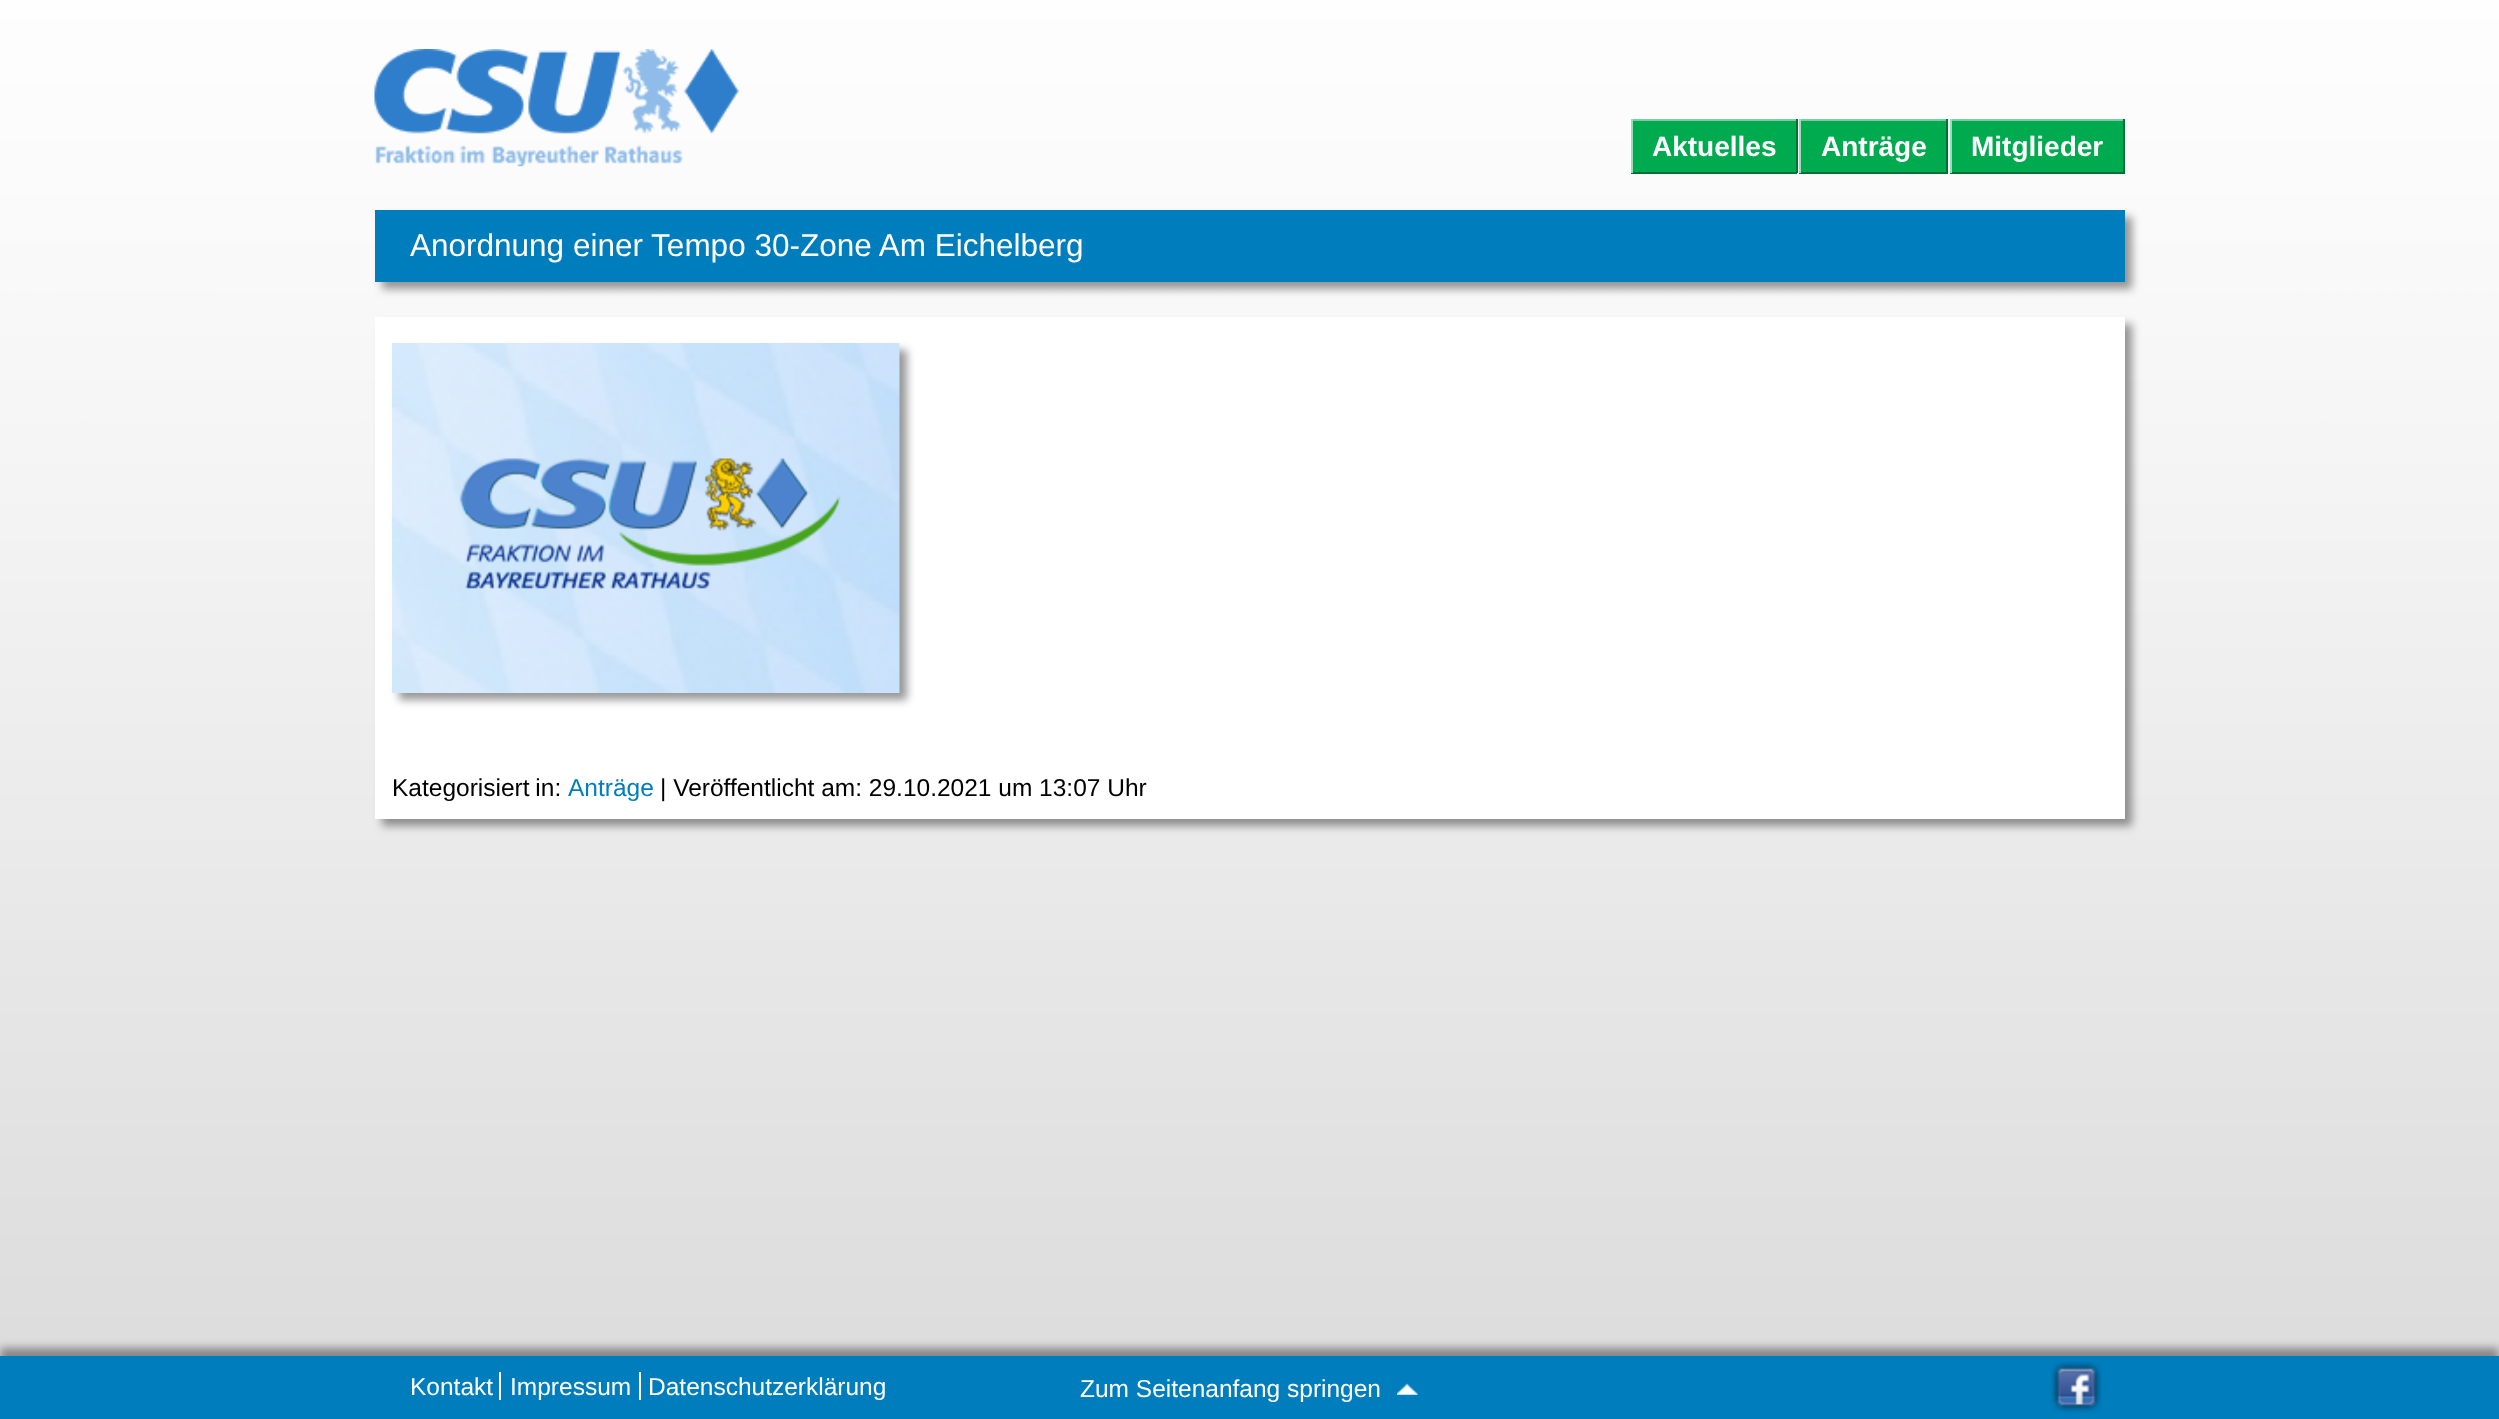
<!DOCTYPE html>
<meta charset="utf-8">
<style>body { margin: 0 } canvas { display: block }</style>
<canvas id="canvas" width="2499" height="1419"></canvas>
<script type="module">
  const canvas = document.getElementById("canvas");
  const ctx = canvas.getContext("2d");
  ctx.miterLimit = 4;
  ctx.fontKerning = "normal";
  async function loadImage(src) {
    const img = new Image();
    img.src = src;
    await img.decode();
    return img;
  }

  ctx.fillStyle = "#ffffff";
  ctx.fillRect(0, 0, 2499, 1419);
  ctx.drawImage(await loadImage("img1.png"), 0, 0, 2499, 1356);
  ctx.drawImage(await loadImage("img2.png"), 374, 49, 365, 118);
  ctx.fillStyle = "#00ab4f";
  ctx.fillRect(1633, 121, 163, 51);
  ctx.font = "bold 28px Liberation Sans";
  ctx.fillStyle = "#ffffff";
  ctx.fillText("Aktuelles", 1652, 156);
  ctx.fillStyle = "#74d19f";
  ctx.fillRect(1631, 119, 166, 2);
  ctx.fillStyle = "#007034";
  ctx.fillRect(1796, 119, 2, 54);
  ctx.fillRect(1631, 172, 166, 2);
  ctx.fillStyle = "#99ddb9";
  ctx.fillRect(1631, 119, 2, 54);
  ctx.fillStyle = "#00ab4f";
  ctx.fillRect(1801, 121, 145, 51);
  ctx.fillStyle = "#ffffff";
  ctx.fillText("Anträge", 1821, 156);
  ctx.fillStyle = "#74d19f";
  ctx.fillRect(1799, 119, 149, 2);
  ctx.fillStyle = "#007034";
  ctx.fillRect(1946, 119, 2, 54);
  ctx.fillRect(1799, 172, 149, 2);
  ctx.fillStyle = "#99ddb9";
  ctx.fillRect(1799, 119, 2, 54);
  ctx.fillStyle = "#00ab4f";
  ctx.fillRect(1952, 121, 171, 51);
  ctx.fillStyle = "#ffffff";
  ctx.fillText("Mitglieder", 1971, 156);
  ctx.fillStyle = "#74d19f";
  ctx.fillRect(1950, 119, 175, 2);
  ctx.fillStyle = "#007034";
  ctx.fillRect(2123, 119, 2, 54);
  ctx.fillRect(1950, 172, 175, 2);
  ctx.fillStyle = "#99ddb9";
  ctx.fillRect(1950, 119, 2, 54);
  ctx.fillStyle = "rgba(50, 50, 50, 0.5)";
  ctx.filter = "blur(4.5px)";
  ctx.beginPath();
  ctx.rect(382, 217, 1750, 72);
  ctx.fill();
  ctx.filter = "none";
  ctx.fillStyle = "#007dbd";
  ctx.fillRect(375, 210, 1750, 72);
  ctx.font = "31.5px Liberation Sans";
  ctx.fillStyle = "#ffffff";
  ctx.fillText("Anordnung einer Tempo 30-Zone Am Eichelberg", 410, 256);
  ctx.fillStyle = "rgba(50, 50, 50, 0.5)";
  ctx.filter = "blur(4.5px)";
  ctx.beginPath();
  ctx.rect(382, 324, 1750, 502);
  ctx.fill();
  ctx.filter = "none";
  ctx.fillStyle = "#ffffff";
  ctx.fillRect(375, 317, 1750, 502);
  ctx.fillStyle = "rgba(50, 50, 50, 0.5)";
  ctx.filter = "blur(4.5px)";
  ctx.beginPath();
  ctx.rect(399, 350, 508, 350);
  ctx.fill();
  ctx.filter = "none";
  ctx.drawImage(await loadImage("img3.png"), 392, 343, 508, 350);
  ctx.wordSpacing = "-1px";
  ctx.font = "24.5px Liberation Sans";
  ctx.fillStyle = "#000000";
  ctx.fillText("Kategorisiert in:", 392, 796);
  ctx.wordSpacing = "0px";
  ctx.fillStyle = "#007dbd";
  ctx.fillText("Anträge", 568, 796);
  ctx.fillStyle = "#000000";
  ctx.fillText("| Veröffentlicht am: 29.10.2021 um 13:07 Uhr", 660, 796);
  ctx.fillStyle = "rgba(50, 50, 50, 0.5)";
  ctx.filter = "blur(4.5px)";
  ctx.beginPath();
  ctx.rect(0, 1348, 2499, 63);
  ctx.fill();
  ctx.filter = "none";
  ctx.fillStyle = "#007dbd";
  ctx.fillRect(0, 1356, 2499, 63);
  ctx.fillStyle = "#ffffff";
  ctx.fillText("Kontakt", 410, 1395);
  ctx.fillText("Impressum", 510, 1395);
  ctx.fillRect(499, 1372, 2, 28);
  ctx.fillText("Datenschutzerklärung", 648, 1395);
  ctx.fillRect(639, 1372, 2, 28);
  ctx.fillText("Zum Seitenanfang springen", 1080, 1397);
  ctx.drawImage(await loadImage("img4.png"), 1397, 1383, 21, 12);
  ctx.drawImage(await loadImage("img5.png"), 2050, 1361, 52, 52);
</script>
